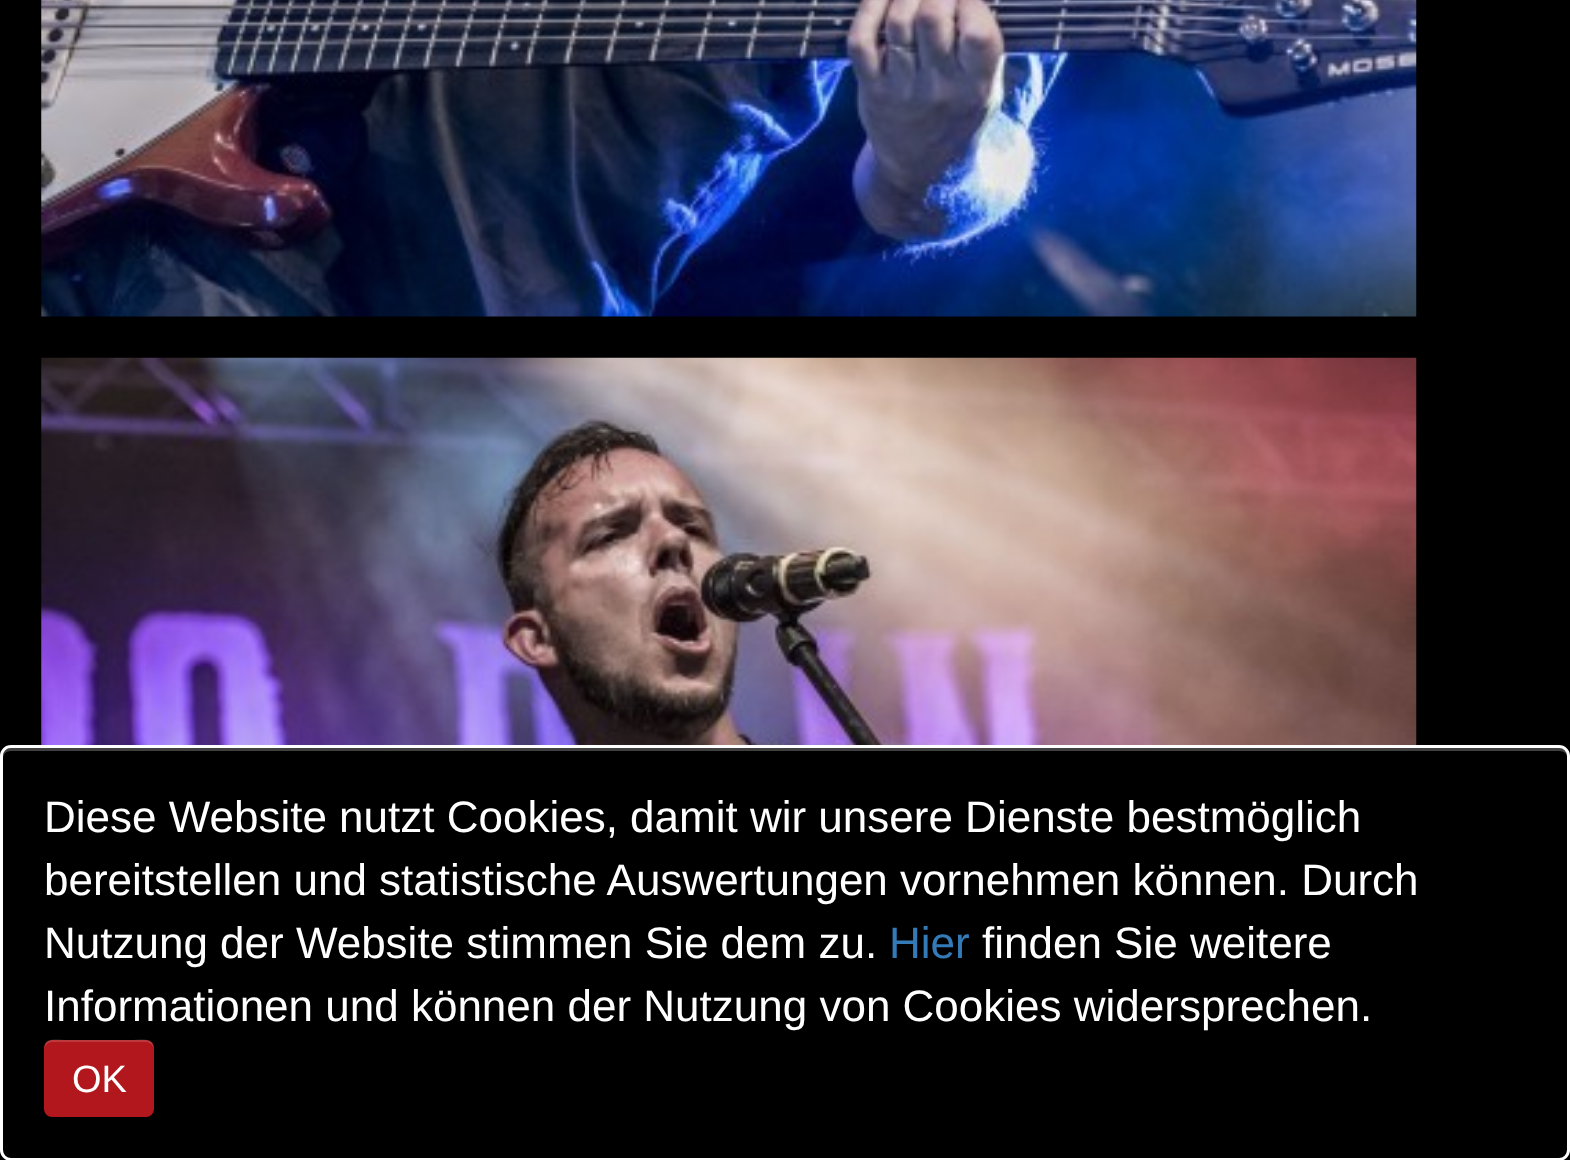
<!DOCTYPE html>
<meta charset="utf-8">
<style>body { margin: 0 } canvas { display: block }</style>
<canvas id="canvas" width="1570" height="1160"></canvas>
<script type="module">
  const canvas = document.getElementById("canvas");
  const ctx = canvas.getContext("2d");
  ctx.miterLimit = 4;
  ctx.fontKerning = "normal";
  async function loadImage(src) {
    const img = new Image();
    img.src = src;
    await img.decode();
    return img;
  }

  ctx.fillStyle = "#000000";
  ctx.fillRect(0, 0, 1570, 1160);
  ctx.drawImage(await loadImage("img1.png"), 41, 0, 1376, 317);
  ctx.drawImage(await loadImage("img2.png"), 41, 357, 1376, 388);
  ctx.fillStyle = "#404040";
  ctx.beginPath();
  ctx.moveTo(11, 751);
  ctx.lineTo(1559, 751);
  ctx.bezierCurveTo(1564, 751, 1568, 754, 1568, 759);
  ctx.lineTo(1568, 756);
  ctx.bezierCurveTo(1568, 752, 1564, 748, 1560, 748);
  ctx.lineTo(11, 748);
  ctx.bezierCurveTo(7, 748, 3, 752, 3, 756);
  ctx.lineTo(3, 759);
  ctx.bezierCurveTo(3, 754, 6, 751, 11, 751);
  ctx.closePath();
  ctx.fill();
  ctx.beginPath();
  ctx.roundRect(1.5, 746.5, 1567, 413, 9.5);
  ctx.strokeStyle = "#ffffff";
  ctx.lineWidth = 3;
  ctx.stroke();
  ctx.font = "44px Liberation Sans";
  ctx.fillStyle = "#ffffff";
  ctx.fillText("Diese Website nutzt Cookies, damit wir unsere Dienste bestmöglich", 44, 832);
  ctx.fillText("bereitstellen und statistische Auswertungen vornehmen können. Durch", 44, 895);
  ctx.fillText("Nutzung der Website stimmen Sie dem zu.", 44, 958);
  ctx.fillStyle = "#337ab7";
  ctx.fillText("Hier", 889, 958);
  ctx.fillStyle = "#ffffff";
  ctx.fillText("finden Sie weitere", 982, 958);
  ctx.fillText("Informationen und können der Nutzung von Cookies widersprechen.", 44, 1021);
  ctx.fillStyle = "#b1171d";
  ctx.beginPath();
  ctx.roundRect(44, 1040, 110, 77, 8);
  ctx.fill();
  ctx.fillStyle = "rgba(255, 255, 255, 0.15)";
  ctx.beginPath();
  ctx.moveTo(52, 1042);
  ctx.lineTo(146, 1042);
  ctx.bezierCurveTo(150, 1042, 154, 1046, 154, 1050);
  ctx.bezierCurveTo(154, 1036, 141, 1040, 130, 1040);
  ctx.lineTo(68, 1040);
  ctx.bezierCurveTo(57, 1040, 44, 1036, 44, 1050);
  ctx.bezierCurveTo(44, 1046, 48, 1042, 52, 1042);
  ctx.closePath();
  ctx.fill();
  ctx.font = "38px Liberation Sans";
  ctx.fillStyle = "#ffffff";
  ctx.fillText("OK", 72, 1092);
</script>
